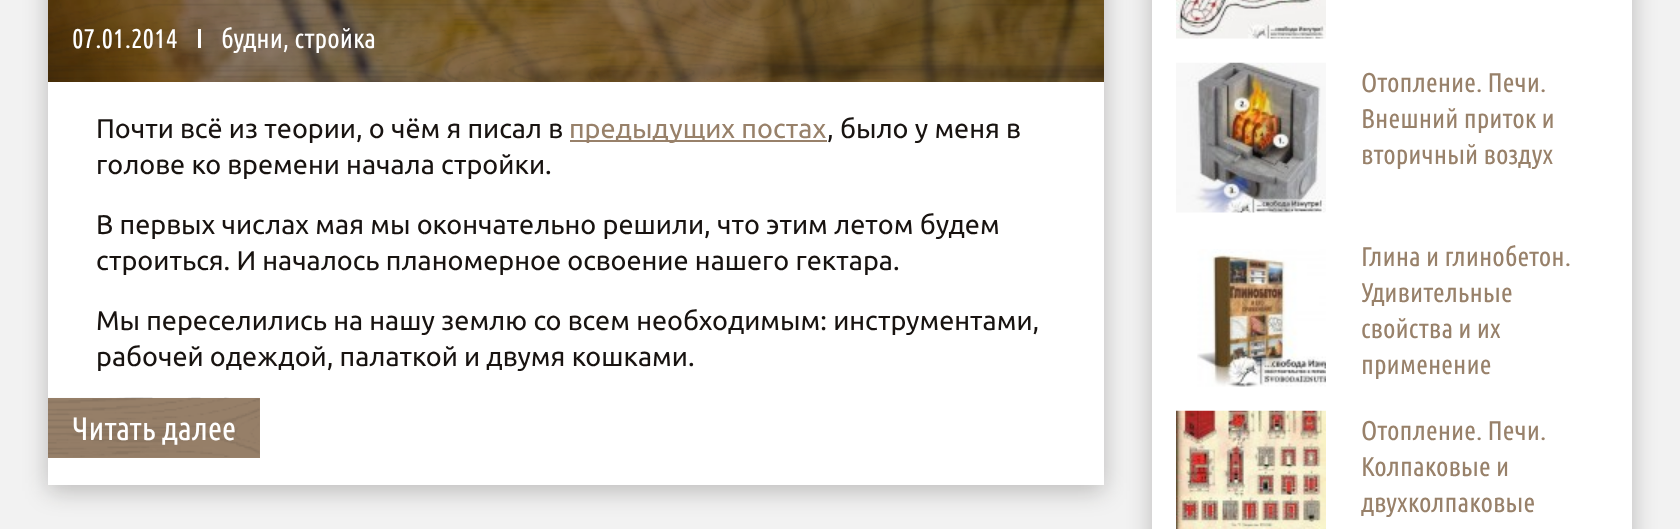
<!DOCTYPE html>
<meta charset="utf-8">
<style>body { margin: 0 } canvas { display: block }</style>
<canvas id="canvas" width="1680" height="529"></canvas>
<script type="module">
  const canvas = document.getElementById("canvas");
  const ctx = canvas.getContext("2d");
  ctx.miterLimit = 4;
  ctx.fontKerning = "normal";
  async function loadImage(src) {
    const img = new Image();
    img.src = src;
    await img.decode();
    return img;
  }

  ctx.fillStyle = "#f2f2f2";
  ctx.fillRect(0, 0, 1680, 529);
  ctx.fillStyle = "rgba(24, 19, 16, 0.25)";
  ctx.filter = "blur(12px)";
  ctx.beginPath();
  ctx.rect(48, -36, 1056, 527);
  ctx.fill();
  ctx.filter = "none";
  ctx.fillStyle = "#ffffff";
  ctx.fillRect(48, 82, 1056, 403);
  ctx.drawImage(await loadImage("img1.png"), 48, 0, 1056, 82);
  ctx.drawImage(await loadImage("img2.png"), 48, 0, 1056, 82);
  ctx.font = "27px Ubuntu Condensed";
  ctx.fillText("07.01.2014", 72, 48);
  ctx.fillRect(198, 29, 3, 19);
  ctx.fillText("будни, стройка", 221, 48);
  ctx.font = "27px Ubuntu";
  ctx.fillStyle = "#181310";
  ctx.fillText("Почти всё из теории, о чём я писал в", 96, 138);
  ctx.fillStyle = "#98816a";
  ctx.fillRect(570, 140, 257, 2);
  ctx.fillText("предыдущих постах", 569, 138);
  ctx.fillStyle = "#181310";
  ctx.fillText(", было у меня в", 827, 138);
  ctx.fillText("голове ко времени начала стройки.", 96, 174);
  ctx.fillText("В первых числах мая мы окончательно решили, что этим летом будем", 96, 234);
  ctx.fillText("строиться. И началось планомерное освоение нашего гектара.", 96, 270);
  ctx.fillText("Мы переселились на нашу землю со всем необходимым: инструментами,", 96, 330);
  ctx.fillText("рабочей одеждой, палаткой и двумя кошками.", 96, 366);
  ctx.fillStyle = "#98816a";
  ctx.fillRect(48, 398, 212, 60);
  ctx.drawImage(await loadImage("img3.png"), 48, 397, 212, 60);
  ctx.font = "32.5px Ubuntu Condensed";
  ctx.fillStyle = "#ffffff";
  ctx.fillText("Читать далее", 72, 440);
  ctx.fillStyle = "rgba(24, 19, 16, 0.25)";
  ctx.filter = "blur(12px)";
  ctx.beginPath();
  ctx.rect(1152, -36, 480, 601);
  ctx.fill();
  ctx.filter = "none";
  ctx.fillStyle = "#ffffff";
  ctx.fillRect(1152, 0, 480, 529);
  ctx.drawImage(await loadImage("img4.png"), 1176, 0, 150, 39);
  ctx.drawImage(await loadImage("img5.png"), 1176, 62, 150, 151);
  ctx.font = "27px Ubuntu Condensed";
  ctx.fillStyle = "#98816a";
  ctx.fillText("Отопление. Печи.", 1361, 92);
  ctx.fillText("Внешний приток и", 1361, 128);
  ctx.fillText("вторичный воздух", 1361, 164);
  ctx.drawImage(await loadImage("img6.png"), 1197, 249, 129, 138);
  ctx.fillText("Глина и глинобетон.", 1361, 266);
  ctx.fillText("Удивительные", 1361, 302);
  ctx.fillText("свойства и их", 1361, 338);
  ctx.fillText("применение", 1361, 374);
  ctx.drawImage(await loadImage("img7.png"), 1176, 410, 150, 119);
  ctx.fillText("Отопление. Печи.", 1361, 440);
  ctx.fillText("Колпаковые и", 1361, 476);
  ctx.fillText("двухколпаковые", 1361, 512);
</script>
